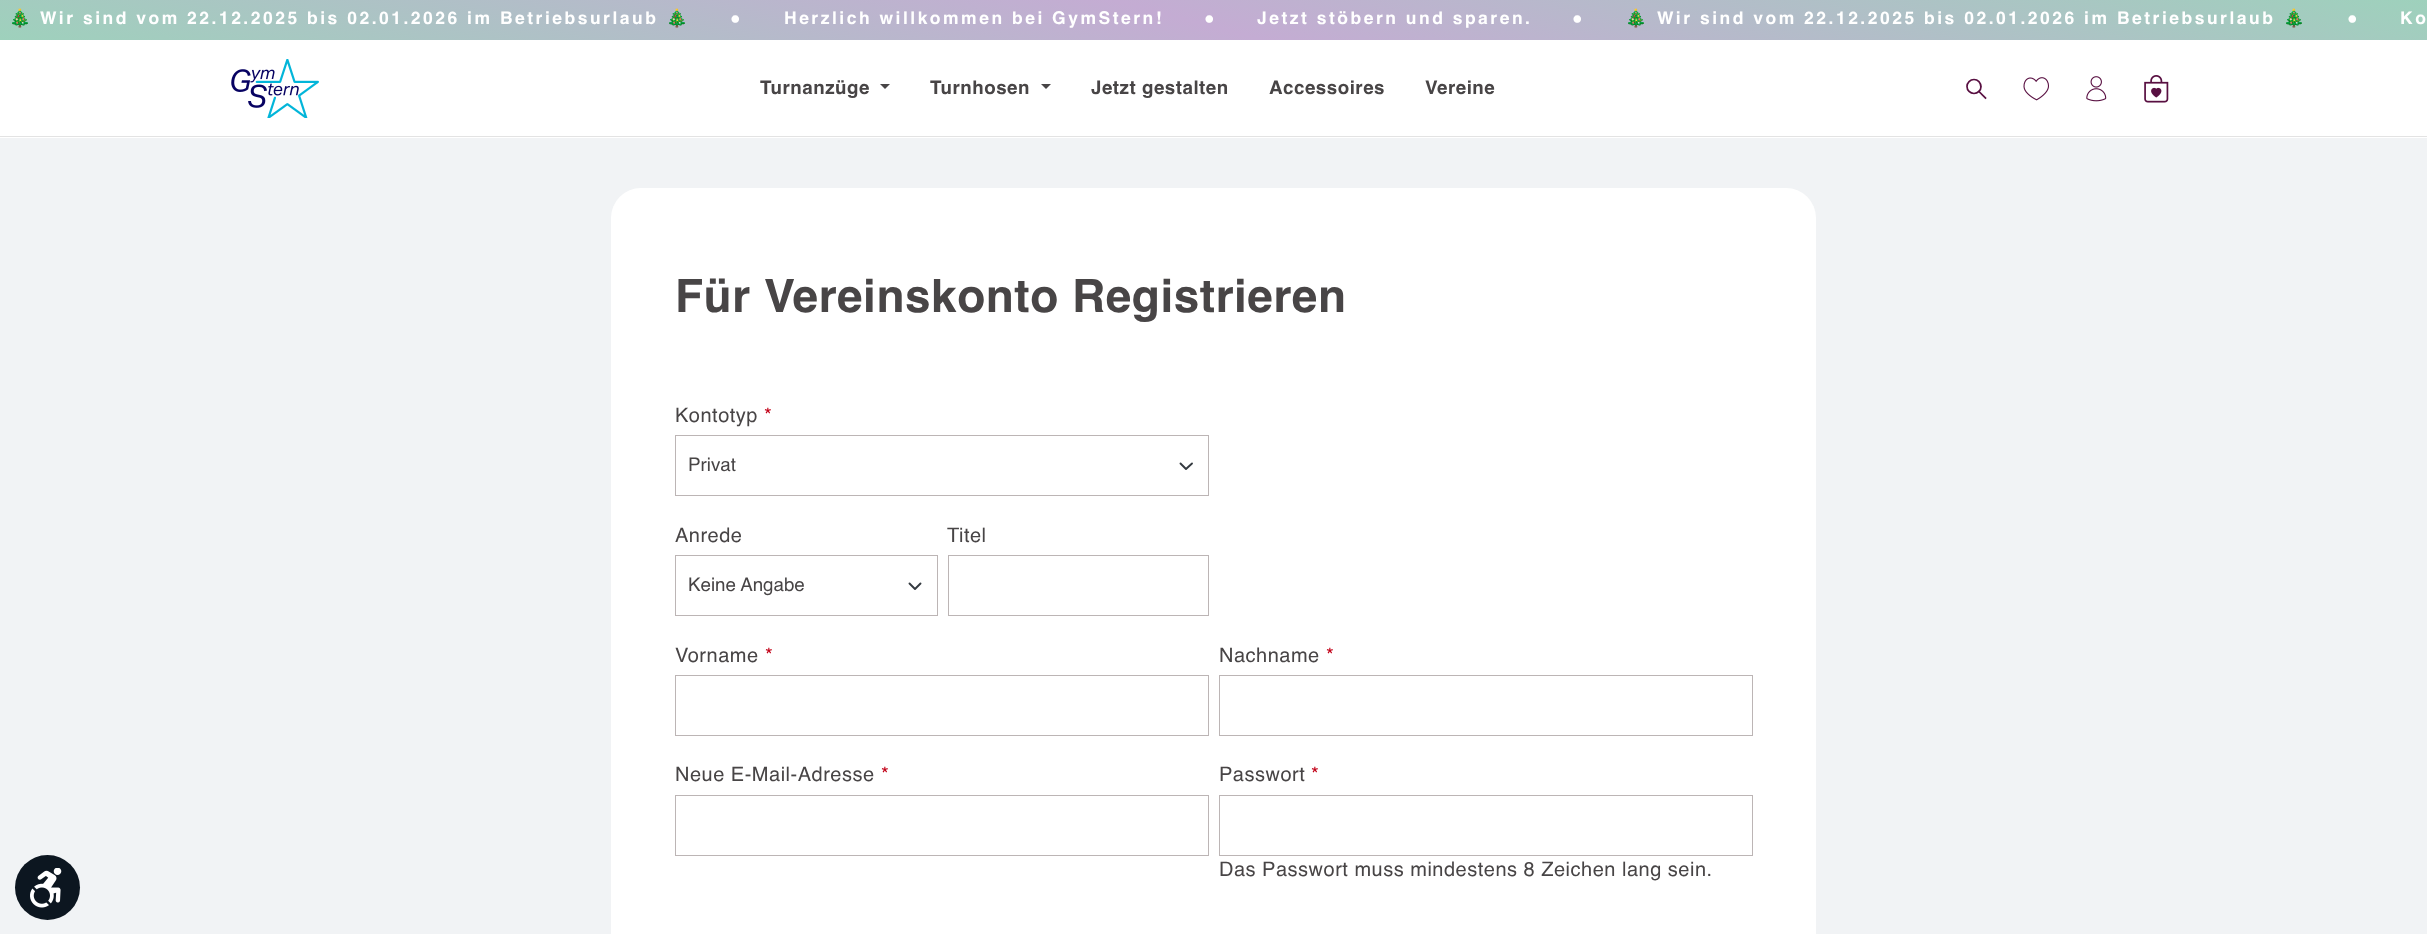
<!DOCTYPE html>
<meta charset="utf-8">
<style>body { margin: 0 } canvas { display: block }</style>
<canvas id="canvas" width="2427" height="934"></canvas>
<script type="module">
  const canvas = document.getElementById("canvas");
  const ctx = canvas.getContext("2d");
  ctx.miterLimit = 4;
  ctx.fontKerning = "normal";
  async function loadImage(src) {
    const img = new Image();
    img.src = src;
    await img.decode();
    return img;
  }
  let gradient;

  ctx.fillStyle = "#f1f3f5";
  ctx.fillRect(0, 0, 2427, 934);
  ctx.fillStyle = "#ffffff";
  ctx.fillRect(0, 40, 2427, 98);
  ctx.fillStyle = "#e3e3e3";
  ctx.fillRect(0, 136, 2427, 1);
  gradient = ctx.createLinearGradient(1127, 342, 1300, -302);
  gradient.addColorStop(0, "#9ed1bc");
  gradient.addColorStop(0.49, "#c4acd3");
  gradient.addColorStop(1, "#9ed1bc");
  ctx.fillStyle = gradient;
  ctx.fillRect(0, 0, 2427, 40);
  ctx.letterSpacing = "2.5px";
  ctx.font = "bold 17.5px Noto Color Emoji";
  ctx.fillStyle = "#ffffff";
  ctx.fillText("🎄", 9, 24);
  ctx.font = "bold 17.5px Helvetica";
  ctx.fillText("Wir sind vom 22.12.2025 bis 02.01.2026 im Betriebsurlaub", 40, 24);
  ctx.font = "bold 17.5px Noto Color Emoji";
  ctx.fillText("🎄", 666, 24);
  ctx.font = "bold 17.5px Helvetica";
  ctx.fillText("●", 730, 24);
  ctx.fillText("Herzlich willkommen bei GymStern!", 784, 24);
  ctx.fillText("●", 1204, 24);
  ctx.fillText("Jetzt stöbern und sparen.", 1257, 24);
  ctx.fillText("●", 1572, 24);
  ctx.font = "bold 17.5px Noto Color Emoji";
  ctx.fillText("🎄", 1625, 24);
  ctx.font = "bold 17.5px Helvetica";
  ctx.fillText("Wir sind vom 22.12.2025 bis 02.01.2026 im Betriebsurlaub", 1657, 24);
  ctx.font = "bold 17.5px Noto Color Emoji";
  ctx.fillText("🎄", 2283, 24);
  ctx.font = "bold 17.5px Helvetica";
  ctx.fillText("●", 2347, 24);
  ctx.fillText("Ko", 2400, 24);
  ctx.drawImage(await loadImage("img1.png"), 231, 59, 88, 59);
  ctx.letterSpacing = "0.5px";
  ctx.font = "bold 18.75px Helvetica";
  ctx.fillStyle = "#484546";
  ctx.fillText("Turnanzüge", 760, 94);
  ctx.beginPath();
  ctx.moveTo(880, 84);
  ctx.lineTo(890, 84);
  ctx.lineTo(885, 89);
  ctx.closePath();
  ctx.fill();
  ctx.fillText("Turnhosen", 930, 94);
  ctx.beginPath();
  ctx.moveTo(1041, 84);
  ctx.lineTo(1051, 84);
  ctx.lineTo(1046, 89);
  ctx.closePath();
  ctx.fill();
  ctx.fillText("Jetzt gestalten", 1091, 94);
  ctx.fillText("Accessoires", 1269, 94);
  ctx.fillText("Vereine", 1425, 94);
  ctx.beginPath();
  ctx.moveTo(1979, 91.5);
  ctx.lineTo(1985.5, 98);
  ctx.strokeStyle = "#580f41";
  ctx.lineWidth = 1.7;
  ctx.lineCap = "square";
  ctx.stroke();
  ctx.beginPath();
  ctx.arc(1974, 86.5, 7, 0, Math.PI * 2);
  ctx.stroke();
  ctx.drawImage(await loadImage("img2.png"), 2023, 77, 26, 24);
  ctx.drawImage(await loadImage("img3.png"), 2086, 76, 21, 26);
  ctx.drawImage(await loadImage("img4.png"), 2144, 75, 25, 28);
  ctx.fillStyle = "#ffffff";
  ctx.beginPath();
  ctx.roundRect(611, 188, 1205, 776, 30);
  ctx.fill();
  ctx.font = "bold 46px Helvetica";
  ctx.fillStyle = "#484546";
  ctx.fillText("Für Vereinskonto Registrieren", 675, 312);
  ctx.font = "20px Helvetica";
  ctx.fillText("Kontotyp", 675, 422);
  ctx.fillStyle = "#c20017";
  ctx.fillText("*", 764, 422);
  ctx.beginPath();
  ctx.moveTo(1180.5, 463.5);
  ctx.lineTo(1186, 469);
  ctx.lineTo(1192, 463.5);
  ctx.strokeStyle = "#343a40";
  ctx.lineWidth = 1.9;
  ctx.lineCap = "round";
  ctx.lineJoin = "round";
  ctx.stroke();
  ctx.strokeStyle = "#bcb5b5";
  ctx.lineWidth = 1;
  ctx.lineJoin = "miter";
  ctx.strokeRect(675.5, 435.5, 533, 60);
  ctx.letterSpacing = "0px";
  ctx.font = "18.75px Helvetica";
  ctx.fillStyle = "#484546";
  ctx.fillText("Privat", 688, 471);
  ctx.letterSpacing = "0.5px";
  ctx.font = "20px Helvetica";
  ctx.fillText("Anrede", 675, 542);
  ctx.beginPath();
  ctx.moveTo(909.5, 583.5);
  ctx.lineTo(915, 589);
  ctx.lineTo(920.5, 583.5);
  ctx.strokeStyle = "#343a40";
  ctx.lineWidth = 1.9;
  ctx.lineJoin = "round";
  ctx.stroke();
  ctx.strokeStyle = "#bcb5b5";
  ctx.lineWidth = 1;
  ctx.lineJoin = "miter";
  ctx.strokeRect(675.5, 555.5, 262, 60);
  ctx.letterSpacing = "0px";
  ctx.font = "18.75px Helvetica";
  ctx.fillText("Keine Angabe", 688, 591);
  ctx.letterSpacing = "0.5px";
  ctx.font = "20px Helvetica";
  ctx.fillText("Titel", 947, 542);
  ctx.strokeRect(948.5, 555.5, 260, 60);
  ctx.fillText("Vorname", 675, 662);
  ctx.fillStyle = "#c20017";
  ctx.fillText("*", 765, 662);
  ctx.strokeRect(675.5, 675.5, 533, 60);
  ctx.fillStyle = "#484546";
  ctx.fillText("Nachname", 1219, 662);
  ctx.fillStyle = "#c20017";
  ctx.fillText("*", 1326, 662);
  ctx.strokeRect(1219.5, 675.5, 533, 60);
  ctx.fillStyle = "#484546";
  ctx.fillText("Neue E-Mail-Adresse", 675, 781);
  ctx.fillStyle = "#c20017";
  ctx.fillText("*", 881, 781);
  ctx.strokeRect(675.5, 795.5, 533, 60);
  ctx.fillStyle = "#484546";
  ctx.fillText("Passwort", 1219, 781);
  ctx.fillStyle = "#c20017";
  ctx.fillText("*", 1311, 781);
  ctx.strokeRect(1219.5, 795.5, 533, 60);
  ctx.fillStyle = "#484546";
  ctx.fillText("Das Passwort muss mindestens 8 Zeichen lang sein.", 1219, 876);
  ctx.fillStyle = "#0c1620";
  ctx.beginPath();
  ctx.arc(47.5, 887.5, 32.5, 0, Math.PI * 2);
  ctx.fill();
  ctx.drawImage(await loadImage("img5.png"), 30, 868, 32, 40);
</script>
